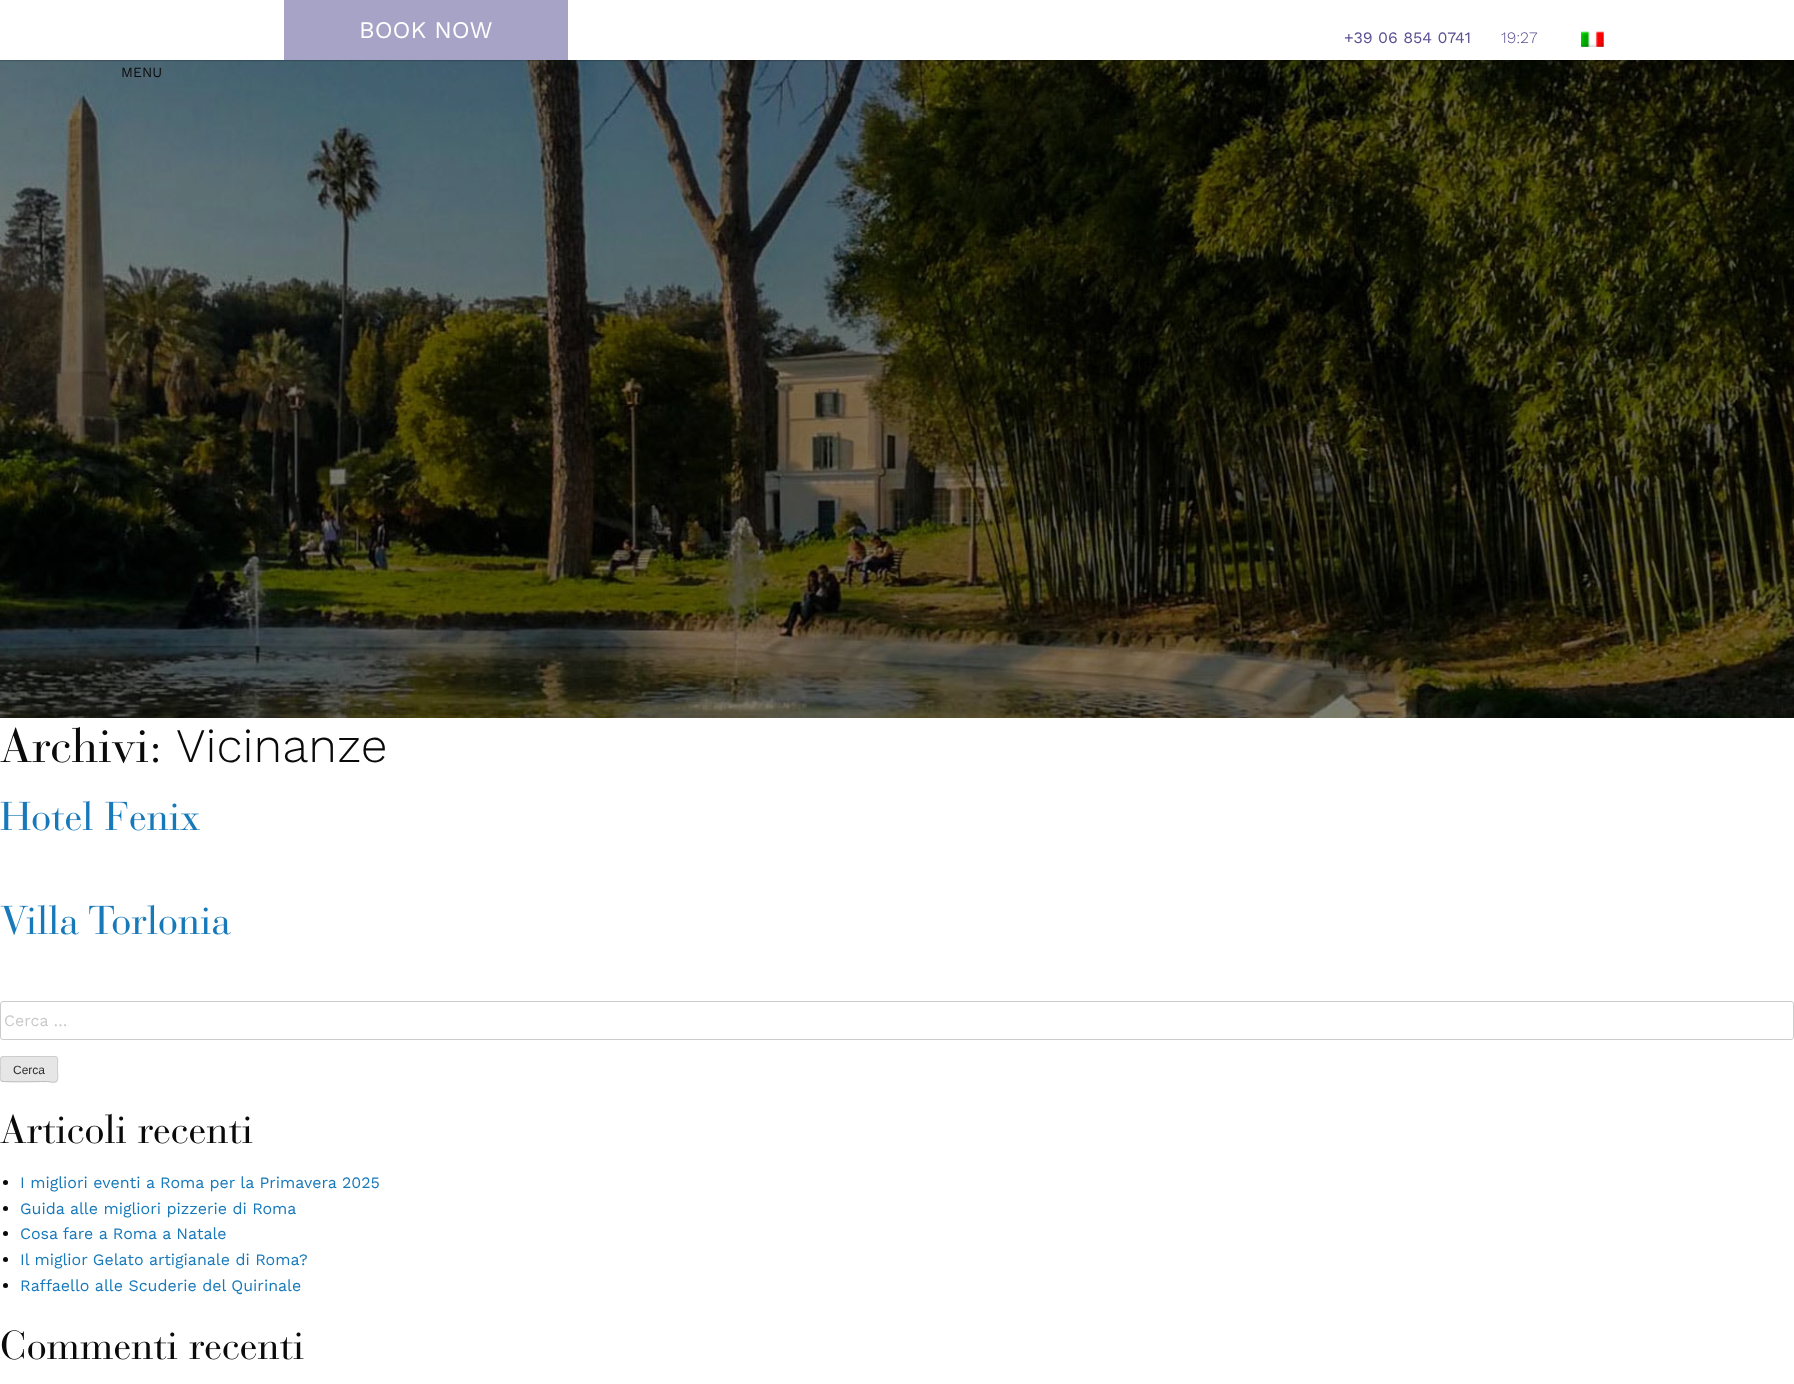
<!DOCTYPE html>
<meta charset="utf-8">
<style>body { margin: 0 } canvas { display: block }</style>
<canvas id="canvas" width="1794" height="1384"></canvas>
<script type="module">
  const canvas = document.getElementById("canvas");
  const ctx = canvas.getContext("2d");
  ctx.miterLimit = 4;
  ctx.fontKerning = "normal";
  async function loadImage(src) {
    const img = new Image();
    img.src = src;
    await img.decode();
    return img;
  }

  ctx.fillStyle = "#ffffff";
  ctx.fillRect(0, 0, 1794, 1384);
  ctx.drawImage(await loadImage("img1.png"), 0, 60, 1794, 658);
  ctx.fillStyle = "rgba(0, 0, 0, 0.5)";
  ctx.filter = "blur(1px)";
  ctx.beginPath();
  ctx.rect(0, 0, 1794, 60);
  ctx.fill();
  ctx.filter = "none";
  ctx.fillStyle = "#ffffff";
  ctx.fillRect(0, 0, 1794, 60);
  ctx.fillStyle = "#a7a3c6";
  ctx.fillRect(284, 0, 284, 60);
  ctx.font = "24px Work Sans";
  ctx.fillStyle = "#ffffff";
  ctx.fillText("BOOK NOW", 359, 38);
  ctx.font = "14px Work Sans";
  ctx.fillStyle = "#0a0a0a";
  ctx.fillText("MENU", 121, 77);
  ctx.font = "16px Work Sans";
  ctx.fillStyle = "#594e92";
  ctx.fillText("+39 06 854 0741", 1344, 43);
  ctx.font = "300 16px Work Sans";
  ctx.fillText("19:27", 1501, 43);
  ctx.drawImage(await loadImage("img2.png"), 1581, 31, 23, 16);
  ctx.drawImage(await loadImage("img3.png"), 0, 726, 158, 38);
  ctx.font = "300 48px Work Sans";
  ctx.fillStyle = "#0a0a0a";
  ctx.fillText("Vicinanze", 176, 762);
  ctx.drawImage(await loadImage("img4.png"), 0, 800, 200, 31);
  ctx.drawImage(await loadImage("img5.png"), 0, 904, 231, 31);
  ctx.beginPath();
  ctx.roundRect(0.5, 1001.5, 1793, 38, 2.5);
  ctx.strokeStyle = "#cccccc";
  ctx.stroke();
  ctx.font = "16px Work Sans";
  ctx.fillStyle = "#cacaca";
  ctx.fillText("Cerca …", 4, 1026);
  ctx.fillStyle = "#e6e6e6";
  ctx.beginPath();
  ctx.roundRect(0, 1056, 58, 26, 3);
  ctx.fill();
  ctx.beginPath();
  ctx.moveTo(57, 1081);
  ctx.bezierCurveTo(54.5, 1083.5, 50, 1081.5, 46.5, 1081.5);
  ctx.bezierCurveTo(41, 1081.5, 3, 1082.5, 1, 1081);
  ctx.strokeStyle = "#bbbbbb";
  ctx.stroke();
  ctx.beginPath();
  ctx.moveTo(1, 1081);
  ctx.bezierCurveTo(-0.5, 1079, 0.5, 1071.5, 0.5, 1069);
  ctx.bezierCurveTo(0.5, 1055, -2, 1056.5, 11.5, 1056.5);
  ctx.lineTo(46.5, 1056.5);
  ctx.bezierCurveTo(60, 1056.5, 57.5, 1055, 57.5, 1069);
  ctx.bezierCurveTo(57.5, 1071.5, 58.5, 1079, 57, 1081);
  ctx.strokeStyle = "#cccccc";
  ctx.stroke();
  ctx.font = "12px Liberation Sans";
  ctx.fillStyle = "#2e2e2e";
  ctx.fillText("Cerca", 13, 1074);
  ctx.drawImage(await loadImage("img6.png"), 0, 1113, 253, 31);
  ctx.fillStyle = "#0a0a0a";
  ctx.beginPath();
  ctx.arc(5.5, 1182.5, 2.5, 0, Math.PI * 2);
  ctx.fill();
  ctx.font = "16px Work Sans";
  ctx.fillStyle = "#1779ba";
  ctx.fillText("I migliori eventi a Roma per la Primavera 2025", 20, 1188);
  ctx.fillStyle = "#0a0a0a";
  ctx.beginPath();
  ctx.arc(5.5, 1208.5, 2.5, 0, Math.PI * 2);
  ctx.fill();
  ctx.fillStyle = "#1779ba";
  ctx.fillText("Guida alle migliori pizzerie di Roma", 20, 1214);
  ctx.fillStyle = "#0a0a0a";
  ctx.beginPath();
  ctx.arc(5.5, 1233.5, 2.5, 0, Math.PI * 2);
  ctx.fill();
  ctx.fillStyle = "#1779ba";
  ctx.fillText("Cosa fare a Roma a Natale", 20, 1239);
  ctx.fillStyle = "#0a0a0a";
  ctx.beginPath();
  ctx.arc(5.5, 1259.5, 2.5, 0, Math.PI * 2);
  ctx.fill();
  ctx.fillStyle = "#1779ba";
  ctx.fillText("Il miglior Gelato artigianale di Roma?", 20, 1265);
  ctx.fillStyle = "#0a0a0a";
  ctx.beginPath();
  ctx.arc(5.5, 1285.5, 2.5, 0, Math.PI * 2);
  ctx.fill();
  ctx.fillStyle = "#1779ba";
  ctx.fillText("Raffaello alle Scuderie del Quirinale", 20, 1291);
  ctx.drawImage(await loadImage("img7.png"), 1, 1330, 303, 30);
</script>
